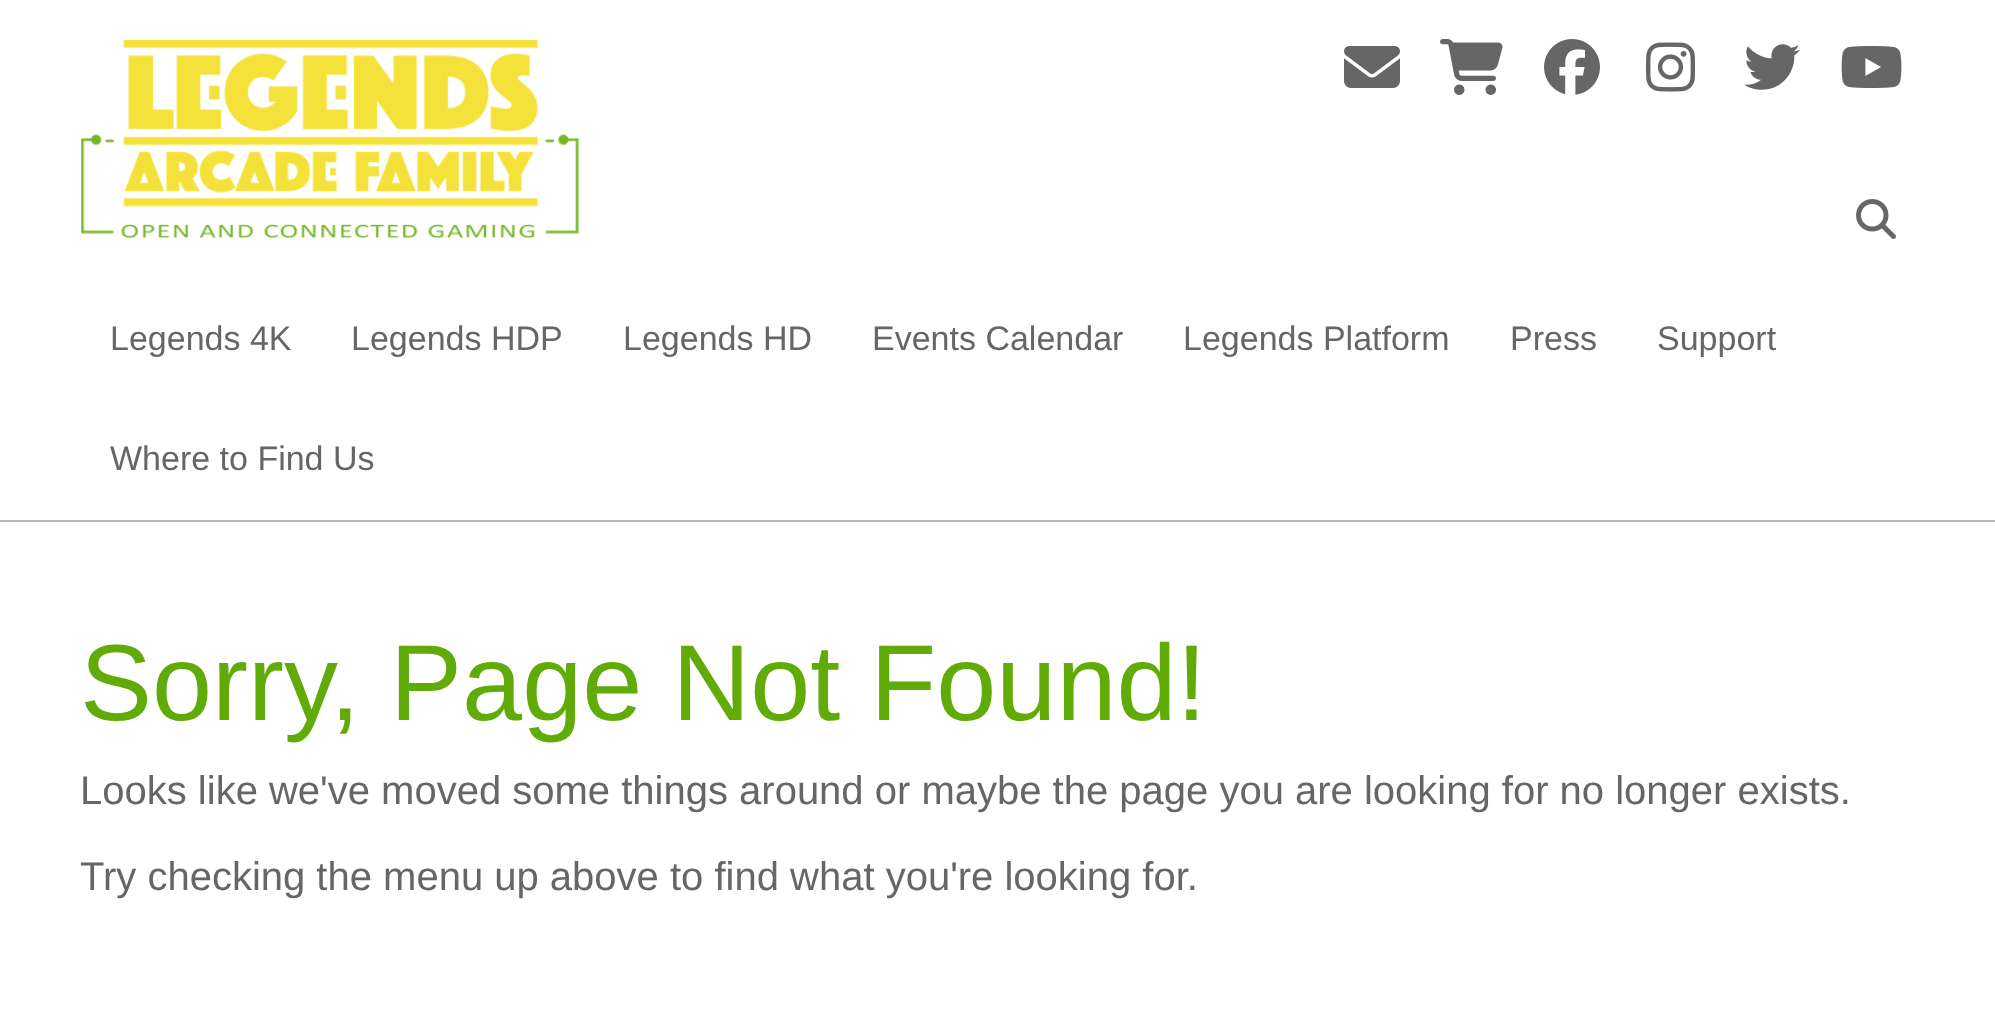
<!DOCTYPE html>
<meta charset="utf-8">
<style>body { margin: 0 } canvas { display: block }</style>
<canvas id="canvas" width="1995" height="1011"></canvas>
<script type="module">
  const canvas = document.getElementById("canvas");
  const ctx = canvas.getContext("2d");
  ctx.miterLimit = 4;
  ctx.fontKerning = "normal";
  async function loadImage(src) {
    const img = new Image();
    img.src = src;
    await img.decode();
    return img;
  }

  ctx.fillStyle = "#ffffff";
  ctx.fillRect(0, 0, 1995, 1011);
  ctx.fillStyle = "#b7b7b7";
  ctx.fillRect(0, 520, 1995, 2);
  ctx.drawImage(await loadImage("img1.png"), 81, 40, 498, 198);
  ctx.drawImage(await loadImage("img2.png"), 1344, 46, 56, 42);
  ctx.drawImage(await loadImage("img3.png"), 1440, 39, 63, 56);
  ctx.drawImage(await loadImage("img4.png"), 1544, 39, 56, 56);
  ctx.drawImage(await loadImage("img5.png"), 1646, 42, 49, 50);
  ctx.drawImage(await loadImage("img6.png"), 1744, 44, 56, 46);
  ctx.drawImage(await loadImage("img7.png"), 1841, 46, 61, 42);
  ctx.drawImage(await loadImage("img8.png"), 1856, 199, 40, 40);
  ctx.font = "34px Liberation Sans";
  ctx.fillStyle = "#666666";
  ctx.fillText("Legends 4K", 110, 350);
  ctx.fillText("Legends HDP", 351, 350);
  ctx.fillText("Legends HD", 623, 350);
  ctx.fillText("Events Calendar", 872, 350);
  ctx.fillText("Legends Platform", 1183, 350);
  ctx.fillText("Press", 1510, 350);
  ctx.fillText("Support", 1657, 350);
  ctx.fillText("Where to Find Us", 110, 470);
  ctx.font = "108px Liberation Sans";
  ctx.fillStyle = "#60ab08";
  ctx.fillText("Sorry, Page Not Found!", 80, 720);
  ctx.font = "40px Liberation Sans";
  ctx.fillStyle = "#666666";
  ctx.fillText("Looks like we've moved some things around or maybe the page you are looking for no longer exists.", 80, 804);
  ctx.fillText("Try checking the menu up above to find what you're looking for.", 80, 890);
</script>
